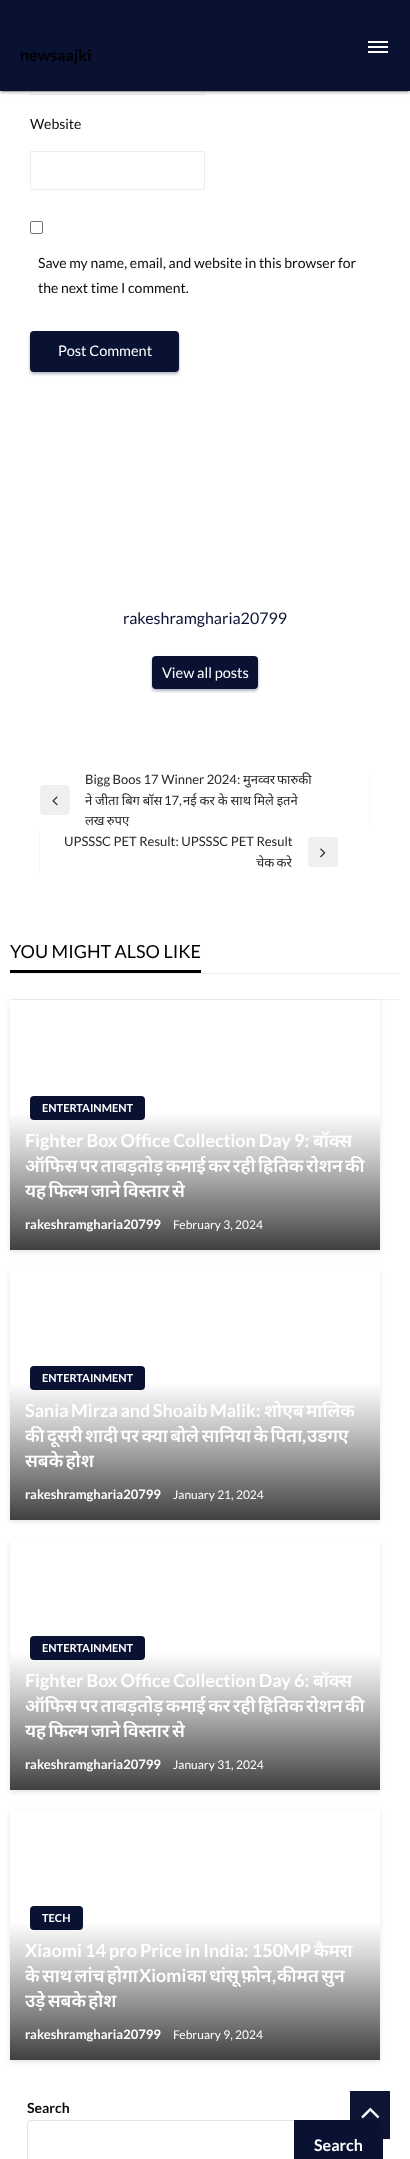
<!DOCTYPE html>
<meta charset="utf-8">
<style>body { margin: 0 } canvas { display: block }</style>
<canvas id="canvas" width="410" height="2159"></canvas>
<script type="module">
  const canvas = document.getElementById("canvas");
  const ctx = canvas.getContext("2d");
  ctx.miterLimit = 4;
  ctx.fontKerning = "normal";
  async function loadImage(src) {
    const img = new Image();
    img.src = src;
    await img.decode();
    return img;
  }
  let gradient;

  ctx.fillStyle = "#ffffff";
  ctx.fillRect(0, 0, 410, 2159);
  ctx.strokeStyle = "#eeeeee";
  ctx.strokeRect(30.5, 56.5, 174, 38);
  ctx.fillStyle = "rgba(0, 0, 0, 0.12)";
  ctx.filter = "blur(2.5px)";
  ctx.beginPath();
  ctx.rect(0, 1, 410, 91);
  ctx.fill();
  ctx.filter = "none";
  ctx.fillStyle = "rgba(0, 0, 0, 0.2)";
  ctx.filter = "blur(0.5px)";
  ctx.beginPath();
  ctx.rect(2, 5, 406, 87);
  ctx.fill();
  ctx.filter = "none";
  ctx.fillStyle = "rgba(0, 0, 0, 0.14)";
  ctx.filter = "blur(1px)";
  ctx.beginPath();
  ctx.rect(0, 2, 410, 91);
  ctx.fill();
  ctx.filter = "none";
  ctx.fillStyle = "#0a1233";
  ctx.fillRect(0, 0, 410, 91);
  ctx.fillStyle = "#ffffff";
  ctx.fillRect(368, 41, 20, 2);
  ctx.fillRect(368, 46, 20, 2);
  ctx.fillRect(368, 51, 20, 2);
  ctx.font = "bold 16px Lato";
  ctx.fillStyle = "#000000";
  ctx.fillText("newsaajki", 20, 61);
  ctx.font = "14px Lato";
  ctx.fillStyle = "#0a0a0a";
  ctx.fillText("Website", 30, 129);
  ctx.strokeRect(30.5, 151.5, 174, 38);
  ctx.beginPath();
  ctx.roundRect(30.5, 221.5, 12, 12, 1.5);
  ctx.strokeStyle = "#767676";
  ctx.stroke();
  ctx.fillText("Save my name, email, and website in this browser for", 38, 268);
  ctx.fillText("the next time I comment.", 38, 293);
  ctx.fillStyle = "rgba(3, 6, 42, 0.3)";
  ctx.filter = "blur(1.5px)";
  ctx.beginPath();
  ctx.roundRect(30, 333, 149, 41, 4);
  ctx.fill();
  ctx.filter = "none";
  ctx.fillStyle = "#0a1233";
  ctx.beginPath();
  ctx.roundRect(30, 331, 149, 41, 4);
  ctx.fill();
  ctx.font = "14.5px Lato";
  ctx.fillStyle = "#ffffff";
  ctx.fillText("Post Comment", 58, 356);
  ctx.font = "16px Lato";
  ctx.fillStyle = "#0a1233";
  ctx.fillText("rakeshramgharia20799", 123, 624);
  ctx.fillStyle = "rgba(3, 6, 42, 0.3)";
  ctx.filter = "blur(1.5px)";
  ctx.beginPath();
  ctx.roundRect(152, 658, 106, 33, 4);
  ctx.fill();
  ctx.filter = "none";
  ctx.fillStyle = "#0a1233";
  ctx.beginPath();
  ctx.roundRect(152, 656, 106, 33, 4);
  ctx.fill();
  ctx.font = "14.5px Lato";
  ctx.fillStyle = "#ffffff";
  ctx.fillText("View all posts", 162, 678);
  ctx.fillStyle = "#fafafa";
  ctx.fillRect(369, 769, 1, 62);
  ctx.fillStyle = "#efefef";
  ctx.beginPath();
  ctx.roundRect(40, 785, 30, 30, 4);
  ctx.fill();
  ctx.drawImage(await loadImage("img1.png"), 52, 796, 6, 10);
  ctx.font = "13px Lato";
  ctx.fillStyle = "#282828";
  ctx.fillText("Bigg Boos 17 Winner 2024:", 85, 784);
  ctx.font = "13px Noto Sans";
  ctx.fillText("मुनव्वर", 243, 784);
  ctx.fillText("फारुकी", 277, 784);
  ctx.save();
  ctx.beginPath();
  ctx.rect(85, 769, 232, 62);
  ctx.clip();
  ctx.wordSpacing = "-0.5px";
  ctx.fillText("ने जीता बिग बॉस", 85, 805);
  ctx.restore();
  ctx.font = "13px Lato";
  ctx.fillText("17,", 164, 805);
  ctx.wordSpacing = "-0.5px";
  ctx.font = "13px Noto Sans";
  ctx.fillText("नई कर के साथ मिले इतने", 183, 805);
  ctx.wordSpacing = "-1px";
  ctx.fillText("लख रुपए", 85, 825);
  ctx.fillStyle = "#f5f5f5";
  ctx.fillRect(39, 831, 1, 42);
  ctx.wordSpacing = "0px";
  ctx.font = "13px Lato";
  ctx.fillStyle = "#282828";
  ctx.fillText("UPSSSC PET Result: UPSSSC PET Result", 64, 846);
  ctx.wordSpacing = "-1px";
  ctx.font = "13px Noto Sans";
  ctx.fillText("चेक करे", 256, 867);
  ctx.fillStyle = "#efefef";
  ctx.beginPath();
  ctx.roundRect(308, 837, 30, 30, 4);
  ctx.fill();
  ctx.drawImage(await loadImage("img2.png"), 320, 848, 6, 10);
  ctx.fillRect(10, 999, 390, 1);
  ctx.fillRect(10, 973, 390, 1);
  ctx.fillStyle = "#000000";
  ctx.fillRect(10, 970, 191, 3);
  ctx.wordSpacing = "0px";
  ctx.font = "18px Lato";
  ctx.fillText("YOU MIGHT ALSO LIKE", 10, 958);
  ctx.save();
  ctx.beginPath();
  ctx.moveTo(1, 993);
  ctx.lineTo(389, 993);
  ctx.lineTo(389, 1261);
  ctx.lineTo(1, 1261);
  ctx.closePath();
  ctx.moveTo(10, 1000);
  ctx.lineTo(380, 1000);
  ctx.lineTo(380, 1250);
  ctx.lineTo(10, 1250);
  ctx.closePath();
  ctx.clip("evenodd");
  ctx.fillStyle = "rgba(0, 0, 0, 0.1)";
  ctx.filter = "blur(2.5px)";
  ctx.beginPath();
  ctx.rect(10, 1002, 370, 250);
  ctx.fill();
  ctx.filter = "none";
  ctx.restore();
  gradient = ctx.createLinearGradient(195, 1112, 195, 1250);
  gradient.addColorStop(0, "#ffffff");
  gradient.addColorStop(0.3, "#cccccc");
  gradient.addColorStop(1, "#404040");
  ctx.fillStyle = gradient;
  ctx.fillRect(10, 1114, 370, 136);
  ctx.fillStyle = "#0a1233";
  ctx.beginPath();
  ctx.roundRect(30, 1096, 115, 24, 4);
  ctx.fill();
  ctx.font = "bold 11px Lato";
  ctx.fillStyle = "#ffffff";
  ctx.fillText("ENTERTAINMENT", 42, 1112);
  ctx.wordSpacing = "-0.5px";
  ctx.font = "bold 18px Lato";
  ctx.fillText("Fighter Box Office Collection Day 9:", 25, 1147);
  ctx.wordSpacing = "0px";
  ctx.font = "600 18px Noto Sans";
  ctx.fillText("बॉक्स", 313, 1147);
  ctx.wordSpacing = "-2.25px";
  ctx.fillText("ऑफिस पर ताबड़तोड़ कमाई कर रही ह्रितिक रोशन की", 25, 1172);
  ctx.fillText("यह फिल्म जाने विस्तार से", 25, 1197);
  ctx.wordSpacing = "0px";
  ctx.font = "bold 13px Lato";
  ctx.fillText("rakeshramgharia20799", 25, 1229);
  ctx.font = "12px Lato";
  ctx.fillText("February 3, 2024", 173, 1229);
  ctx.save();
  ctx.beginPath();
  ctx.moveTo(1, 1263);
  ctx.lineTo(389, 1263);
  ctx.lineTo(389, 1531);
  ctx.lineTo(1, 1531);
  ctx.closePath();
  ctx.moveTo(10, 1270);
  ctx.lineTo(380, 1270);
  ctx.lineTo(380, 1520);
  ctx.lineTo(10, 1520);
  ctx.closePath();
  ctx.clip("evenodd");
  ctx.fillStyle = "rgba(0, 0, 0, 0.1)";
  ctx.filter = "blur(2.5px)";
  ctx.beginPath();
  ctx.rect(10, 1272, 370, 250);
  ctx.fill();
  ctx.filter = "none";
  ctx.restore();
  gradient = ctx.createLinearGradient(195, 1382, 195, 1520);
  gradient.addColorStop(0, "#ffffff");
  gradient.addColorStop(0.3, "#cccccc");
  gradient.addColorStop(1, "#404040");
  ctx.fillStyle = gradient;
  ctx.fillRect(10, 1384, 370, 136);
  ctx.fillStyle = "#0a1233";
  ctx.beginPath();
  ctx.roundRect(30, 1366, 115, 24, 4);
  ctx.fill();
  ctx.font = "bold 11px Lato";
  ctx.fillStyle = "#ffffff";
  ctx.fillText("ENTERTAINMENT", 42, 1382);
  ctx.wordSpacing = "-1px";
  ctx.font = "bold 18px Lato";
  ctx.fillText("Sania Mirza and Shoaib Malik:", 25, 1417);
  ctx.wordSpacing = "0px";
  ctx.font = "600 18px Noto Sans";
  ctx.fillText("शोएब", 264, 1417);
  ctx.fillText("मालिक", 306, 1417);
  ctx.wordSpacing = "-2.25px";
  ctx.fillText("की दूसरी शादी पर क्या बोले सानिया के पिता", 25, 1442);
  ctx.wordSpacing = "0px";
  ctx.font = "bold 18px Lato";
  ctx.fillText(",", 302, 1442);
  ctx.font = "600 18px Noto Sans";
  ctx.fillText("उडगए", 307, 1442);
  ctx.wordSpacing = "-2.25px";
  ctx.fillText("सबके होश", 25, 1467);
  ctx.wordSpacing = "0px";
  ctx.font = "bold 13px Lato";
  ctx.fillText("rakeshramgharia20799", 25, 1499);
  ctx.font = "12px Lato";
  ctx.fillText("January 21, 2024", 173, 1499);
  ctx.save();
  ctx.beginPath();
  ctx.moveTo(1, 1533);
  ctx.lineTo(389, 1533);
  ctx.lineTo(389, 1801);
  ctx.lineTo(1, 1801);
  ctx.closePath();
  ctx.moveTo(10, 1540);
  ctx.lineTo(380, 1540);
  ctx.lineTo(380, 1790);
  ctx.lineTo(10, 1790);
  ctx.closePath();
  ctx.clip("evenodd");
  ctx.fillStyle = "rgba(0, 0, 0, 0.1)";
  ctx.filter = "blur(2.5px)";
  ctx.beginPath();
  ctx.rect(10, 1542, 370, 250);
  ctx.fill();
  ctx.filter = "none";
  ctx.restore();
  gradient = ctx.createLinearGradient(195, 1652, 195, 1790);
  gradient.addColorStop(0, "#ffffff");
  gradient.addColorStop(0.3, "#cccccc");
  gradient.addColorStop(1, "#404040");
  ctx.fillStyle = gradient;
  ctx.fillRect(10, 1654, 370, 136);
  ctx.fillStyle = "#0a1233";
  ctx.beginPath();
  ctx.roundRect(30, 1636, 115, 24, 4);
  ctx.fill();
  ctx.font = "bold 11px Lato";
  ctx.fillStyle = "#ffffff";
  ctx.fillText("ENTERTAINMENT", 42, 1652);
  ctx.wordSpacing = "-0.5px";
  ctx.font = "bold 18px Lato";
  ctx.fillText("Fighter Box Office Collection Day 6:", 25, 1687);
  ctx.wordSpacing = "0px";
  ctx.font = "600 18px Noto Sans";
  ctx.fillText("बॉक्स", 313, 1687);
  ctx.wordSpacing = "-2.25px";
  ctx.fillText("ऑफिस पर ताबड़तोड़ कमाई कर रही ह्रितिक रोशन की", 25, 1712);
  ctx.fillText("यह फिल्म जाने विस्तार से", 25, 1737);
  ctx.wordSpacing = "0px";
  ctx.font = "bold 13px Lato";
  ctx.fillText("rakeshramgharia20799", 25, 1769);
  ctx.font = "12px Lato";
  ctx.fillText("January 31, 2024", 173, 1769);
  ctx.save();
  ctx.beginPath();
  ctx.moveTo(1, 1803);
  ctx.lineTo(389, 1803);
  ctx.lineTo(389, 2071);
  ctx.lineTo(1, 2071);
  ctx.closePath();
  ctx.moveTo(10, 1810);
  ctx.lineTo(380, 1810);
  ctx.lineTo(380, 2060);
  ctx.lineTo(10, 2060);
  ctx.closePath();
  ctx.clip("evenodd");
  ctx.fillStyle = "rgba(0, 0, 0, 0.1)";
  ctx.filter = "blur(2.5px)";
  ctx.beginPath();
  ctx.rect(10, 1812, 370, 250);
  ctx.fill();
  ctx.filter = "none";
  ctx.restore();
  gradient = ctx.createLinearGradient(195, 1922, 195, 2060);
  gradient.addColorStop(0, "#ffffff");
  gradient.addColorStop(0.3, "#cccccc");
  gradient.addColorStop(1, "#404040");
  ctx.fillStyle = gradient;
  ctx.fillRect(10, 1924, 370, 136);
  ctx.fillStyle = "#0a1233";
  ctx.beginPath();
  ctx.roundRect(30, 1906, 53, 24, 4);
  ctx.fill();
  ctx.font = "bold 11px Lato";
  ctx.fillStyle = "#ffffff";
  ctx.fillText("TECH", 42, 1922);
  ctx.wordSpacing = "-0.25px";
  ctx.font = "bold 18px Lato";
  ctx.fillText("Xiaomi 14 pro Price in India: 150MP", 25, 1957);
  ctx.wordSpacing = "0px";
  ctx.font = "600 18px Noto Sans";
  ctx.fillText("कैमरा", 314, 1957);
  ctx.wordSpacing = "-2.25px";
  ctx.fillText("के साथ लांच होगा", 25, 1982);
  ctx.wordSpacing = "0px";
  ctx.font = "bold 18px Lato";
  ctx.fillText("Xiomi", 139, 1982);
  ctx.wordSpacing = "-2.25px";
  ctx.font = "600 18px Noto Sans";
  ctx.fillText("का धांसू फ़ोन", 187, 1982);
  ctx.wordSpacing = "0px";
  ctx.font = "bold 18px Lato";
  ctx.fillText(",", 272, 1982);
  ctx.wordSpacing = "-2.25px";
  ctx.font = "600 18px Noto Sans";
  ctx.fillText("कीमत सुन", 277, 1982);
  ctx.fillText("उड़े सबके होश", 25, 2007);
  ctx.wordSpacing = "0px";
  ctx.font = "bold 13px Lato";
  ctx.fillText("rakeshramgharia20799", 25, 2039);
  ctx.font = "12px Lato";
  ctx.fillText("February 9, 2024", 173, 2039);
  ctx.font = "bold 14px Lato";
  ctx.fillStyle = "#0a0a0a";
  ctx.fillText("Search", 27, 2113);
  ctx.beginPath();
  ctx.moveTo(31, 2120.5);
  ctx.lineTo(382.5, 2120.5);
  ctx.lineTo(382.5, 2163.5);
  ctx.lineTo(31, 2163.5);
  ctx.bezierCurveTo(29, 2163.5, 27.5, 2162, 27.5, 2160);
  ctx.lineTo(27.5, 2124);
  ctx.bezierCurveTo(27.5, 2122, 29, 2120.5, 31, 2120.5);
  ctx.closePath();
  ctx.strokeStyle = "#e4e3e3";
  ctx.stroke();
  ctx.fillStyle = "#0a1233";
  ctx.beginPath();
  ctx.moveTo(294, 2120);
  ctx.lineTo(379, 2120);
  ctx.bezierCurveTo(381, 2120, 383, 2122, 383, 2124);
  ctx.lineTo(383, 2159);
  ctx.bezierCurveTo(383, 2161, 381, 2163, 379, 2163);
  ctx.lineTo(294, 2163);
  ctx.closePath();
  ctx.fill();
  ctx.font = "bold 16px Lato";
  ctx.fillStyle = "#ffffff";
  ctx.fillText("Search", 314, 2151);
  ctx.fillStyle = "rgba(10, 18, 51, 0.99)";
  ctx.fillRect(350, 2091, 40, 48);
  ctx.drawImage(await loadImage("img3.png"), 361, 2107, 19, 12);
</script>
